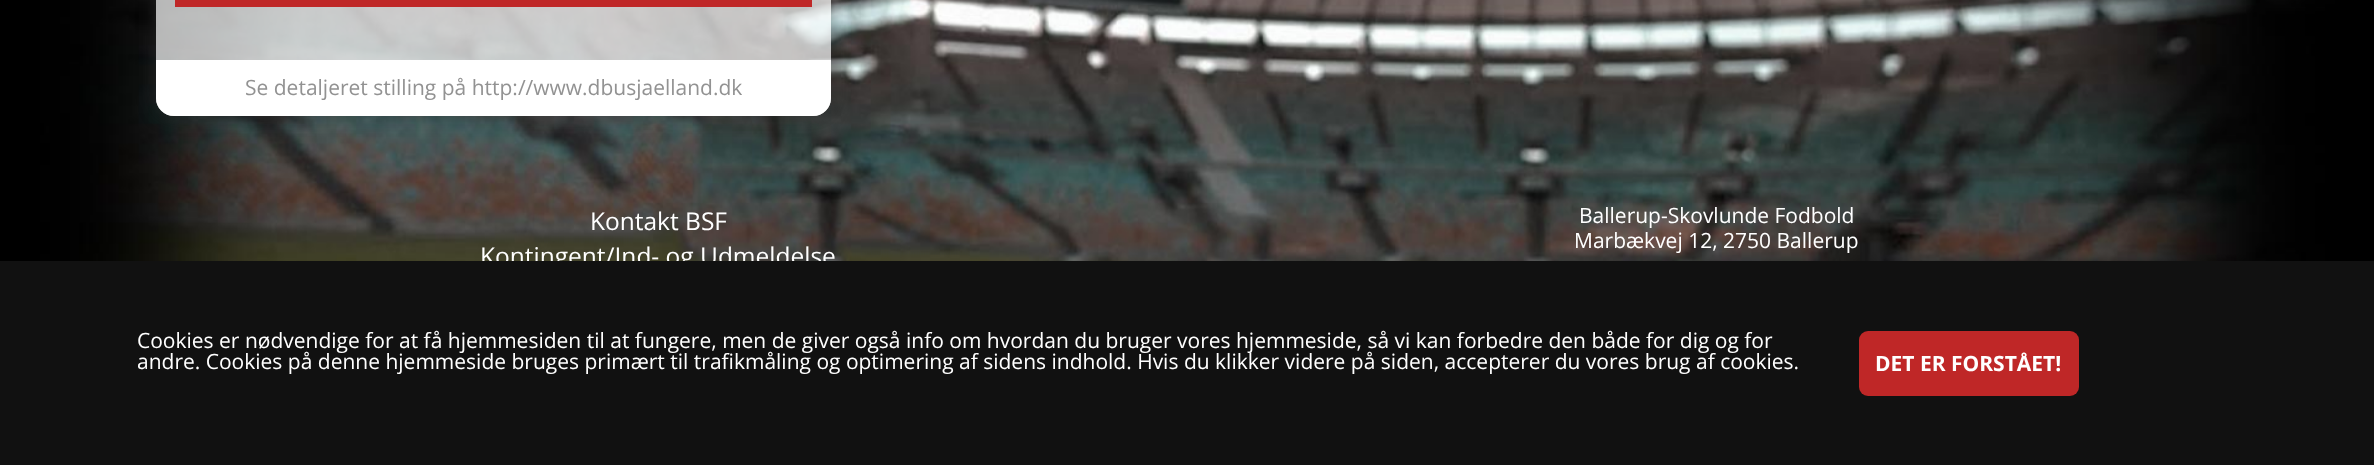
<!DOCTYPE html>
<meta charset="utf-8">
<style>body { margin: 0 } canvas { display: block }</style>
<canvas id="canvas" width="2374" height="465"></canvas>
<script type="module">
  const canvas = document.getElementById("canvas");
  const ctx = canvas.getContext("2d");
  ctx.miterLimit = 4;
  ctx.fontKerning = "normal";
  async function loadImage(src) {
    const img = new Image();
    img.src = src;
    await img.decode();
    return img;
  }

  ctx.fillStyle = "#ffffff";
  ctx.fillRect(0, 0, 2374, 465);
  ctx.drawImage(await loadImage("img1.png"), 0, 0, 2374, 261);
  ctx.save();
  ctx.beginPath();
  ctx.moveTo(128, 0);
  ctx.lineTo(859, 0);
  ctx.lineTo(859, 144);
  ctx.lineTo(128, 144);
  ctx.closePath();
  ctx.moveTo(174, -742);
  ctx.lineTo(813, -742);
  ctx.bezierCurveTo(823, -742, 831, -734, 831, -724);
  ctx.lineTo(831, 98);
  ctx.bezierCurveTo(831, 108, 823, 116, 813, 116);
  ctx.lineTo(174, 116);
  ctx.bezierCurveTo(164, 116, 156, 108, 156, 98);
  ctx.lineTo(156, -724);
  ctx.bezierCurveTo(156, -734, 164, -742, 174, -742);
  ctx.closePath();
  ctx.clip("evenodd");
  ctx.fillStyle = "rgba(48, 48, 48, 0.5)";
  ctx.filter = "blur(9px)";
  ctx.beginPath();
  ctx.roundRect(156, -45, 675, 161, 18);
  ctx.fill();
  ctx.filter = "none";
  ctx.restore();
  ctx.fillStyle = "rgba(255, 255, 255, 0.7)";
  ctx.beginPath();
  ctx.roundRect(156, -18, 675, 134, 18);
  ctx.fill();
  ctx.fillStyle = "#bf2727";
  ctx.fillRect(175, 0, 637, 7);
  ctx.fillStyle = "#ffffff";
  ctx.beginPath();
  ctx.roundRect(156, 60, 675, 56, [0, 0, 18, 18]);
  ctx.fill();
  ctx.font = "21px Open Sans";
  ctx.fillStyle = "#929292";
  ctx.fillText("Se detaljeret stilling på http://www.dbusjaelland.dk", 245, 95);
  ctx.font = "24.5px Open Sans";
  ctx.fillStyle = "#ffffff";
  ctx.fillText("Kontakt BSF", 590, 230);
  ctx.fillText("Kontingent/Ind- og Udmeldelse", 480, 265);
  ctx.font = "21px Open Sans";
  ctx.fillText("Ballerup-Skovlunde Fodbold", 1579, 223);
  ctx.fillText("Marbækvej 12, 2750 Ballerup", 1574, 248);
  ctx.fillStyle = "#111111";
  ctx.fillRect(0, 261, 2374, 204);
  ctx.fillStyle = "#ffffff";
  ctx.fillText("Cookies er nødvendige for at få hjemmesiden til at fungere, men de giver også info om hvordan du bruger vores hjemmeside, så vi kan forbedre den både for dig og for", 137, 348);
  ctx.fillText("andre. Cookies på denne hjemmeside bruges primært til trafikmåling og optimering af sidens indhold. Hvis du klikker videre på siden, accepterer du vores brug af cookies.", 137, 369);
  ctx.fillStyle = "#bf2727";
  ctx.beginPath();
  ctx.roundRect(1859, 331, 220, 65, 9);
  ctx.fill();
  ctx.font = "bold 21px Open Sans";
  ctx.fillStyle = "#ffffff";
  ctx.fillText("DET ER FORSTÅET!", 1875, 371);
</script>
